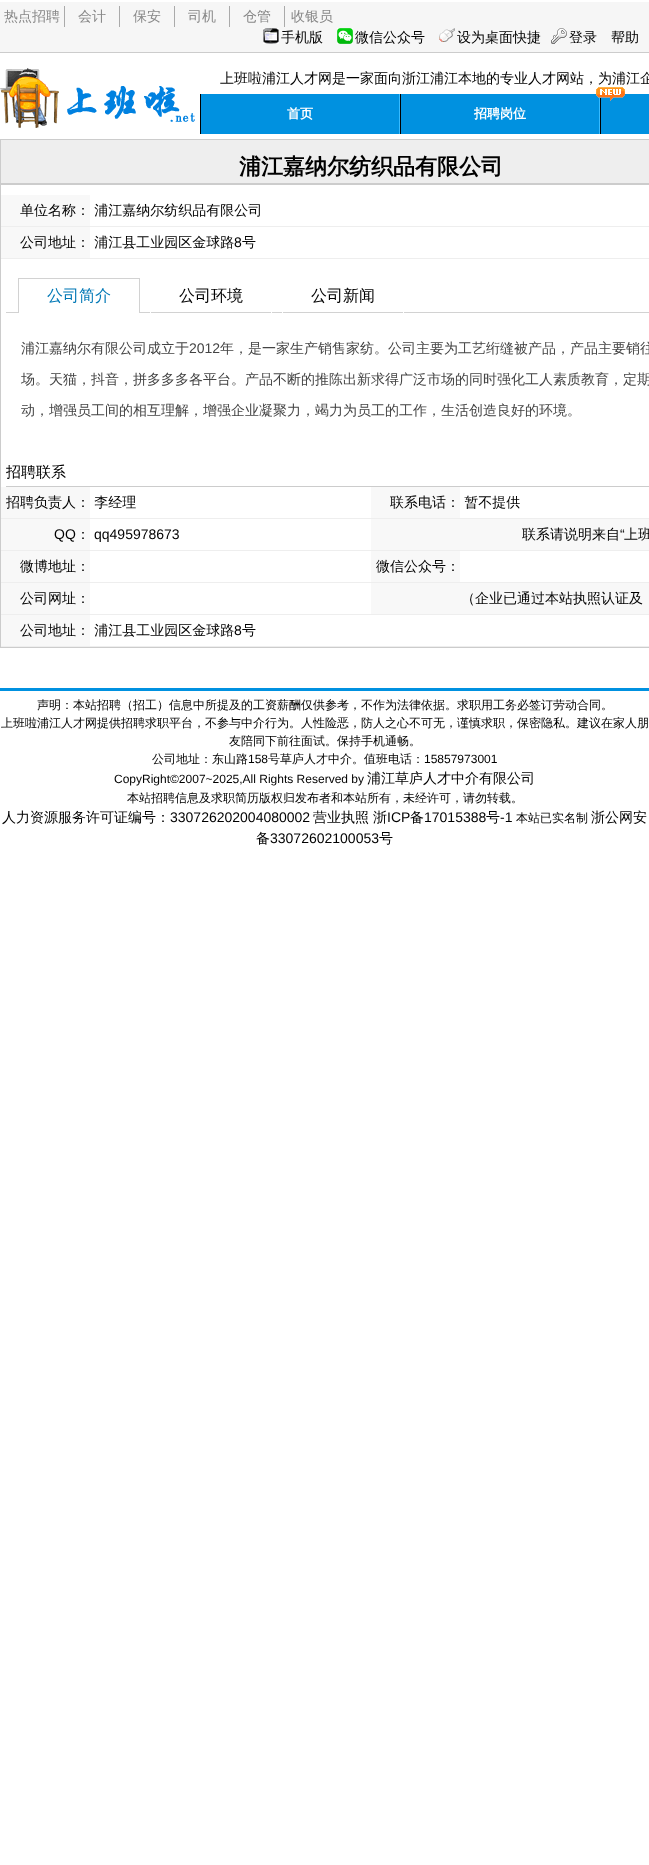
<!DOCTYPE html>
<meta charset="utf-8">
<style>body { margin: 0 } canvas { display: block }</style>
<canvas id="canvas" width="649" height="1865"></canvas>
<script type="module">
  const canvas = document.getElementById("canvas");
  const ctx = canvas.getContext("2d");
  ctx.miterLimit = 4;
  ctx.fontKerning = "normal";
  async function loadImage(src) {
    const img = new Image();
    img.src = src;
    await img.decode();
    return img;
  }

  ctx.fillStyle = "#ffffff";
  ctx.fillRect(0, 0, 649, 1865);
  ctx.fillStyle = "#f6f6f6";
  ctx.fillRect(0, 2, 649, 50);
  ctx.fillStyle = "#cccccc";
  ctx.fillRect(0, 52, 649, 1);
  ctx.font = "500 14px WenQuanYi Zen Hei";
  ctx.fillStyle = "#888888";
  ctx.fillText("热点招聘", 4, 21);
  ctx.fillStyle = "#aaaaaa";
  ctx.fillRect(64, 6, 1, 21);
  ctx.fillStyle = "#888888";
  ctx.fillText("会计", 78, 21);
  ctx.fillStyle = "#aaaaaa";
  ctx.fillRect(119, 6, 1, 21);
  ctx.fillStyle = "#888888";
  ctx.fillText("保安", 133, 21);
  ctx.fillStyle = "#aaaaaa";
  ctx.fillRect(174, 6, 1, 21);
  ctx.fillStyle = "#888888";
  ctx.fillText("司机", 188, 21);
  ctx.fillStyle = "#aaaaaa";
  ctx.fillRect(229, 6, 1, 21);
  ctx.fillStyle = "#888888";
  ctx.fillText("仓管", 243, 21);
  ctx.fillStyle = "#aaaaaa";
  ctx.fillRect(284, 6, 1, 21);
  ctx.fillStyle = "#888888";
  ctx.fillText("收银员", 291, 21);
  ctx.drawImage(await loadImage("img1.png"), 263, 28, 16, 16);
  ctx.fillStyle = "#000000";
  ctx.fillText("手机版", 281, 42);
  ctx.drawImage(await loadImage("img2.png"), 337, 28, 16, 16);
  ctx.fillText("微信公众号", 355, 42);
  ctx.drawImage(await loadImage("img3.png"), 439, 28, 16, 14);
  ctx.fillText("设为桌面快捷", 457, 42);
  ctx.drawImage(await loadImage("img4.png"), 551, 28, 16, 16);
  ctx.fillText("登录", 569, 42);
  ctx.fillText("帮助", 611, 42);
  ctx.drawImage(await loadImage("img5.png"), 0, 68, 195, 60);
  ctx.fillText("上班啦浦江人才网是一家面向浙江浦江本地的专业人才网站，为浦江企", 220, 83);
  ctx.fillStyle = "#0091e0";
  ctx.fillRect(401, 94, 198, 40);
  ctx.fillStyle = "#37bbff";
  ctx.fillRect(599, 94, 1, 40);
  ctx.fillStyle = "#000000";
  ctx.fillRect(600, 94, 1, 40);
  ctx.fillStyle = "#0091e0";
  ctx.fillRect(601, 94, 48, 40);
  ctx.drawImage(await loadImage("img6.png"), 596, 87, 29, 14);
  ctx.fillStyle = "#000000";
  ctx.fillRect(200, 94, 1, 40);
  ctx.fillStyle = "#0091e0";
  ctx.fillRect(201, 94, 198, 40);
  ctx.fillStyle = "#37bbff";
  ctx.fillRect(399, 94, 1, 40);
  ctx.font = "bold 13px WenQuanYi Zen Hei";
  ctx.fillStyle = "#ffffff";
  ctx.fillText("首页", 287, 118);
  ctx.fillStyle = "#000000";
  ctx.fillRect(400, 94, 1, 40);
  ctx.fillStyle = "#ffffff";
  ctx.fillText("招聘岗位", 474, 118);
  ctx.strokeStyle = "#cccccc";
  ctx.strokeRect(0.5, 139.5, 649, 508);
  ctx.fillStyle = "#eeeeee";
  ctx.fillRect(1, 140, 648, 43);
  ctx.fillStyle = "#cccccc";
  ctx.fillRect(1, 183, 648, 2);
  ctx.font = "bold 22px WenQuanYi Zen Hei";
  ctx.fillStyle = "#000000";
  ctx.fillText("浦江嘉纳尔纺织品有限公司", 239, 174);
  ctx.fillStyle = "#eeeeee";
  ctx.fillRect(1, 226, 648, 1);
  ctx.fillStyle = "#f8f8f8";
  ctx.fillRect(1, 195, 89, 31);
  ctx.font = "500 14px WenQuanYi Zen Hei";
  ctx.fillStyle = "#000000";
  ctx.fillText("单位名称： 浦江嘉纳尔纺织品有限公司", 20, 215);
  ctx.fillStyle = "#eeeeee";
  ctx.fillRect(1, 258, 648, 1);
  ctx.fillStyle = "#f8f8f8";
  ctx.fillRect(1, 227, 89, 31);
  ctx.fillStyle = "#000000";
  ctx.fillText("公司地址： 浦江县工业园区金球路", 20, 247);
  ctx.font = "14px Liberation Sans";
  ctx.fillText("8", 234, 247);
  ctx.font = "500 14px WenQuanYi Zen Hei";
  ctx.fillText("号", 242, 247);
  ctx.fillStyle = "#d2d2d2";
  ctx.fillRect(6, 312, 643, 1);
  ctx.fillStyle = "#ffffff";
  ctx.fillRect(19, 312, 120, 1);
  ctx.fillStyle = "#d2d2d2";
  ctx.fillRect(18, 278, 122, 1);
  ctx.fillRect(139, 278, 1, 35);
  ctx.fillRect(18, 278, 1, 35);
  ctx.font = "500 16px WenQuanYi Zen Hei";
  ctx.fillStyle = "#0078b6";
  ctx.fillText("公司简介", 47, 301);
  ctx.fillStyle = "#ffffff";
  ctx.fillRect(271, 312, 1, 1);
  ctx.fillRect(150, 312, 1, 1);
  ctx.fillStyle = "#000000";
  ctx.fillText("公司环境", 179, 301);
  ctx.fillStyle = "#ffffff";
  ctx.fillRect(403, 312, 1, 1);
  ctx.fillRect(282, 312, 1, 1);
  ctx.fillStyle = "#000000";
  ctx.fillText("公司新闻", 311, 301);
  ctx.font = "500 14px WenQuanYi Zen Hei";
  ctx.fillStyle = "#444444";
  ctx.fillText("浦江嘉纳尔有限公司成立于", 21, 353);
  ctx.font = "14px Liberation Sans";
  ctx.fillText("2012", 189, 353);
  ctx.font = "500 14px WenQuanYi Zen Hei";
  ctx.fillText("年，是一家生产销售家纺。公司主要为工艺绗缝被产品，产品主要销往", 220, 353);
  ctx.fillText("场。天猫，抖音，拼多多多各平台。产品不断的推陈出新求得广泛市场的同时强化工人素质教育，定期", 21, 384);
  ctx.fillText("动，增强员工间的相互理解，增强企业凝聚力，竭力为员工的工作，生活创造良好的环境。", 21, 415);
  ctx.fillStyle = "#cccccc";
  ctx.fillRect(6, 486, 643, 1);
  ctx.font = "500 15px WenQuanYi Zen Hei";
  ctx.fillStyle = "#000000";
  ctx.fillText("招聘联系", 6, 477);
  ctx.fillStyle = "#eeeeee";
  ctx.fillRect(1, 518, 648, 1);
  ctx.fillStyle = "#f8f8f8";
  ctx.fillRect(1, 487, 89, 31);
  ctx.font = "500 14px WenQuanYi Zen Hei";
  ctx.fillStyle = "#000000";
  ctx.fillText("招聘负责人： 李经理", 6, 507);
  ctx.fillStyle = "#f8f8f8";
  ctx.fillRect(371, 487, 89, 31);
  ctx.fillStyle = "#000000";
  ctx.fillText("联系电话： 暂不提供", 390, 507);
  ctx.fillStyle = "#eeeeee";
  ctx.fillRect(1, 550, 648, 1);
  ctx.fillStyle = "#f8f8f8";
  ctx.fillRect(1, 519, 89, 31);
  ctx.font = "14px Liberation Sans";
  ctx.fillStyle = "#000000";
  ctx.fillText("QQ", 54, 539);
  ctx.font = "500 14px WenQuanYi Zen Hei";
  ctx.fillText("：", 76, 539);
  ctx.font = "14px Liberation Sans";
  ctx.fillText("qq495978673", 94, 539);
  ctx.fillStyle = "#f8f8f8";
  ctx.fillRect(371, 519, 278, 31);
  ctx.font = "500 14px WenQuanYi Zen Hei";
  ctx.fillStyle = "#000000";
  ctx.fillText("联系请说明来自", 522, 539);
  ctx.font = "14px Liberation Sans";
  ctx.fillText("“", 620, 539);
  ctx.font = "500 14px WenQuanYi Zen Hei";
  ctx.fillText("上班", 624, 539);
  ctx.fillStyle = "#eeeeee";
  ctx.fillRect(1, 582, 648, 1);
  ctx.fillStyle = "#f8f8f8";
  ctx.fillRect(1, 551, 89, 31);
  ctx.fillStyle = "#000000";
  ctx.fillText("微博地址：", 20, 571);
  ctx.fillStyle = "#f8f8f8";
  ctx.fillRect(371, 551, 89, 31);
  ctx.fillStyle = "#000000";
  ctx.fillText("微信公众号：", 376, 571);
  ctx.fillStyle = "#eeeeee";
  ctx.fillRect(1, 614, 648, 1);
  ctx.fillStyle = "#f8f8f8";
  ctx.fillRect(1, 583, 89, 31);
  ctx.fillStyle = "#000000";
  ctx.fillText("公司网址：", 20, 603);
  ctx.fillStyle = "#f8f8f8";
  ctx.fillRect(371, 583, 278, 31);
  ctx.fillStyle = "#000000";
  ctx.fillText("（企业已通过本站执照认证及", 461, 603);
  ctx.fillStyle = "#eeeeee";
  ctx.fillRect(1, 646, 648, 1);
  ctx.fillStyle = "#f8f8f8";
  ctx.fillRect(1, 615, 89, 31);
  ctx.fillStyle = "#000000";
  ctx.fillText("公司地址： 浦江县工业园区金球路", 20, 635);
  ctx.font = "14px Liberation Sans";
  ctx.fillText("8", 234, 635);
  ctx.font = "500 14px WenQuanYi Zen Hei";
  ctx.fillText("号", 242, 635);
  ctx.fillStyle = "#0091e0";
  ctx.fillRect(0, 688, 649, 3);
  ctx.font = "500 12px WenQuanYi Zen Hei";
  ctx.fillStyle = "#000000";
  ctx.fillText("声明：本站招聘（招工）信息中所提及的工资薪酬仅供参考，不作为法律依据。求职用工务必签订劳动合同。", 37, 709);
  ctx.fillText("上班啦浦江人才网提供招聘求职平台，不参与中介行为。人性险恶，防人之心不可无，谨慎求职，保密隐私。建议在家人朋", 1, 727);
  ctx.fillText("友陪同下前往面试。保持手机通畅。", 229, 745);
  ctx.fillText("公司地址：东山路", 152, 763);
  ctx.font = "12px Liberation Sans";
  ctx.fillText("158", 248, 763);
  ctx.font = "500 12px WenQuanYi Zen Hei";
  ctx.fillText("号草庐人才中介。值班电话：", 268, 763);
  ctx.font = "12px Liberation Sans";
  ctx.fillText("15857973001", 424, 763);
  ctx.fillText("CopyRight©2007~2025,All Rights Reserved by", 114, 783);
  ctx.font = "500 14px WenQuanYi Zen Hei";
  ctx.fillText("浦江草庐人才中介有限公司", 367, 783);
  ctx.font = "500 12px WenQuanYi Zen Hei";
  ctx.fillText("本站招聘信息及求职简历版权归发布者和本站所有，未经许可，请勿转载。", 127, 802);
  ctx.font = "500 14px WenQuanYi Zen Hei";
  ctx.fillText("人力资源服务许可证编号：", 2, 822);
  ctx.font = "14px Liberation Sans";
  ctx.fillText("330726202004080002", 170, 822);
  ctx.font = "500 14px WenQuanYi Zen Hei";
  ctx.fillText("营业执照", 313, 822);
  ctx.fillText("浙", 373, 822);
  ctx.font = "14px Liberation Sans";
  ctx.fillText("ICP", 387, 822);
  ctx.font = "500 14px WenQuanYi Zen Hei";
  ctx.fillText("备", 410, 822);
  ctx.font = "14px Liberation Sans";
  ctx.fillText("17015388", 424, 822);
  ctx.font = "500 14px WenQuanYi Zen Hei";
  ctx.fillText("号", 486, 822);
  ctx.font = "14px Liberation Sans";
  ctx.fillText("-1", 500, 822);
  ctx.font = "500 12px WenQuanYi Zen Hei";
  ctx.fillText("本站已实名制", 516, 822);
  ctx.font = "500 14px WenQuanYi Zen Hei";
  ctx.fillText("浙公网安", 591, 822);
  ctx.fillText("备", 256, 843);
  ctx.font = "14px Liberation Sans";
  ctx.fillText("33072602100053", 270, 843);
  ctx.font = "500 14px WenQuanYi Zen Hei";
  ctx.fillText("号", 379, 843);
</script>
